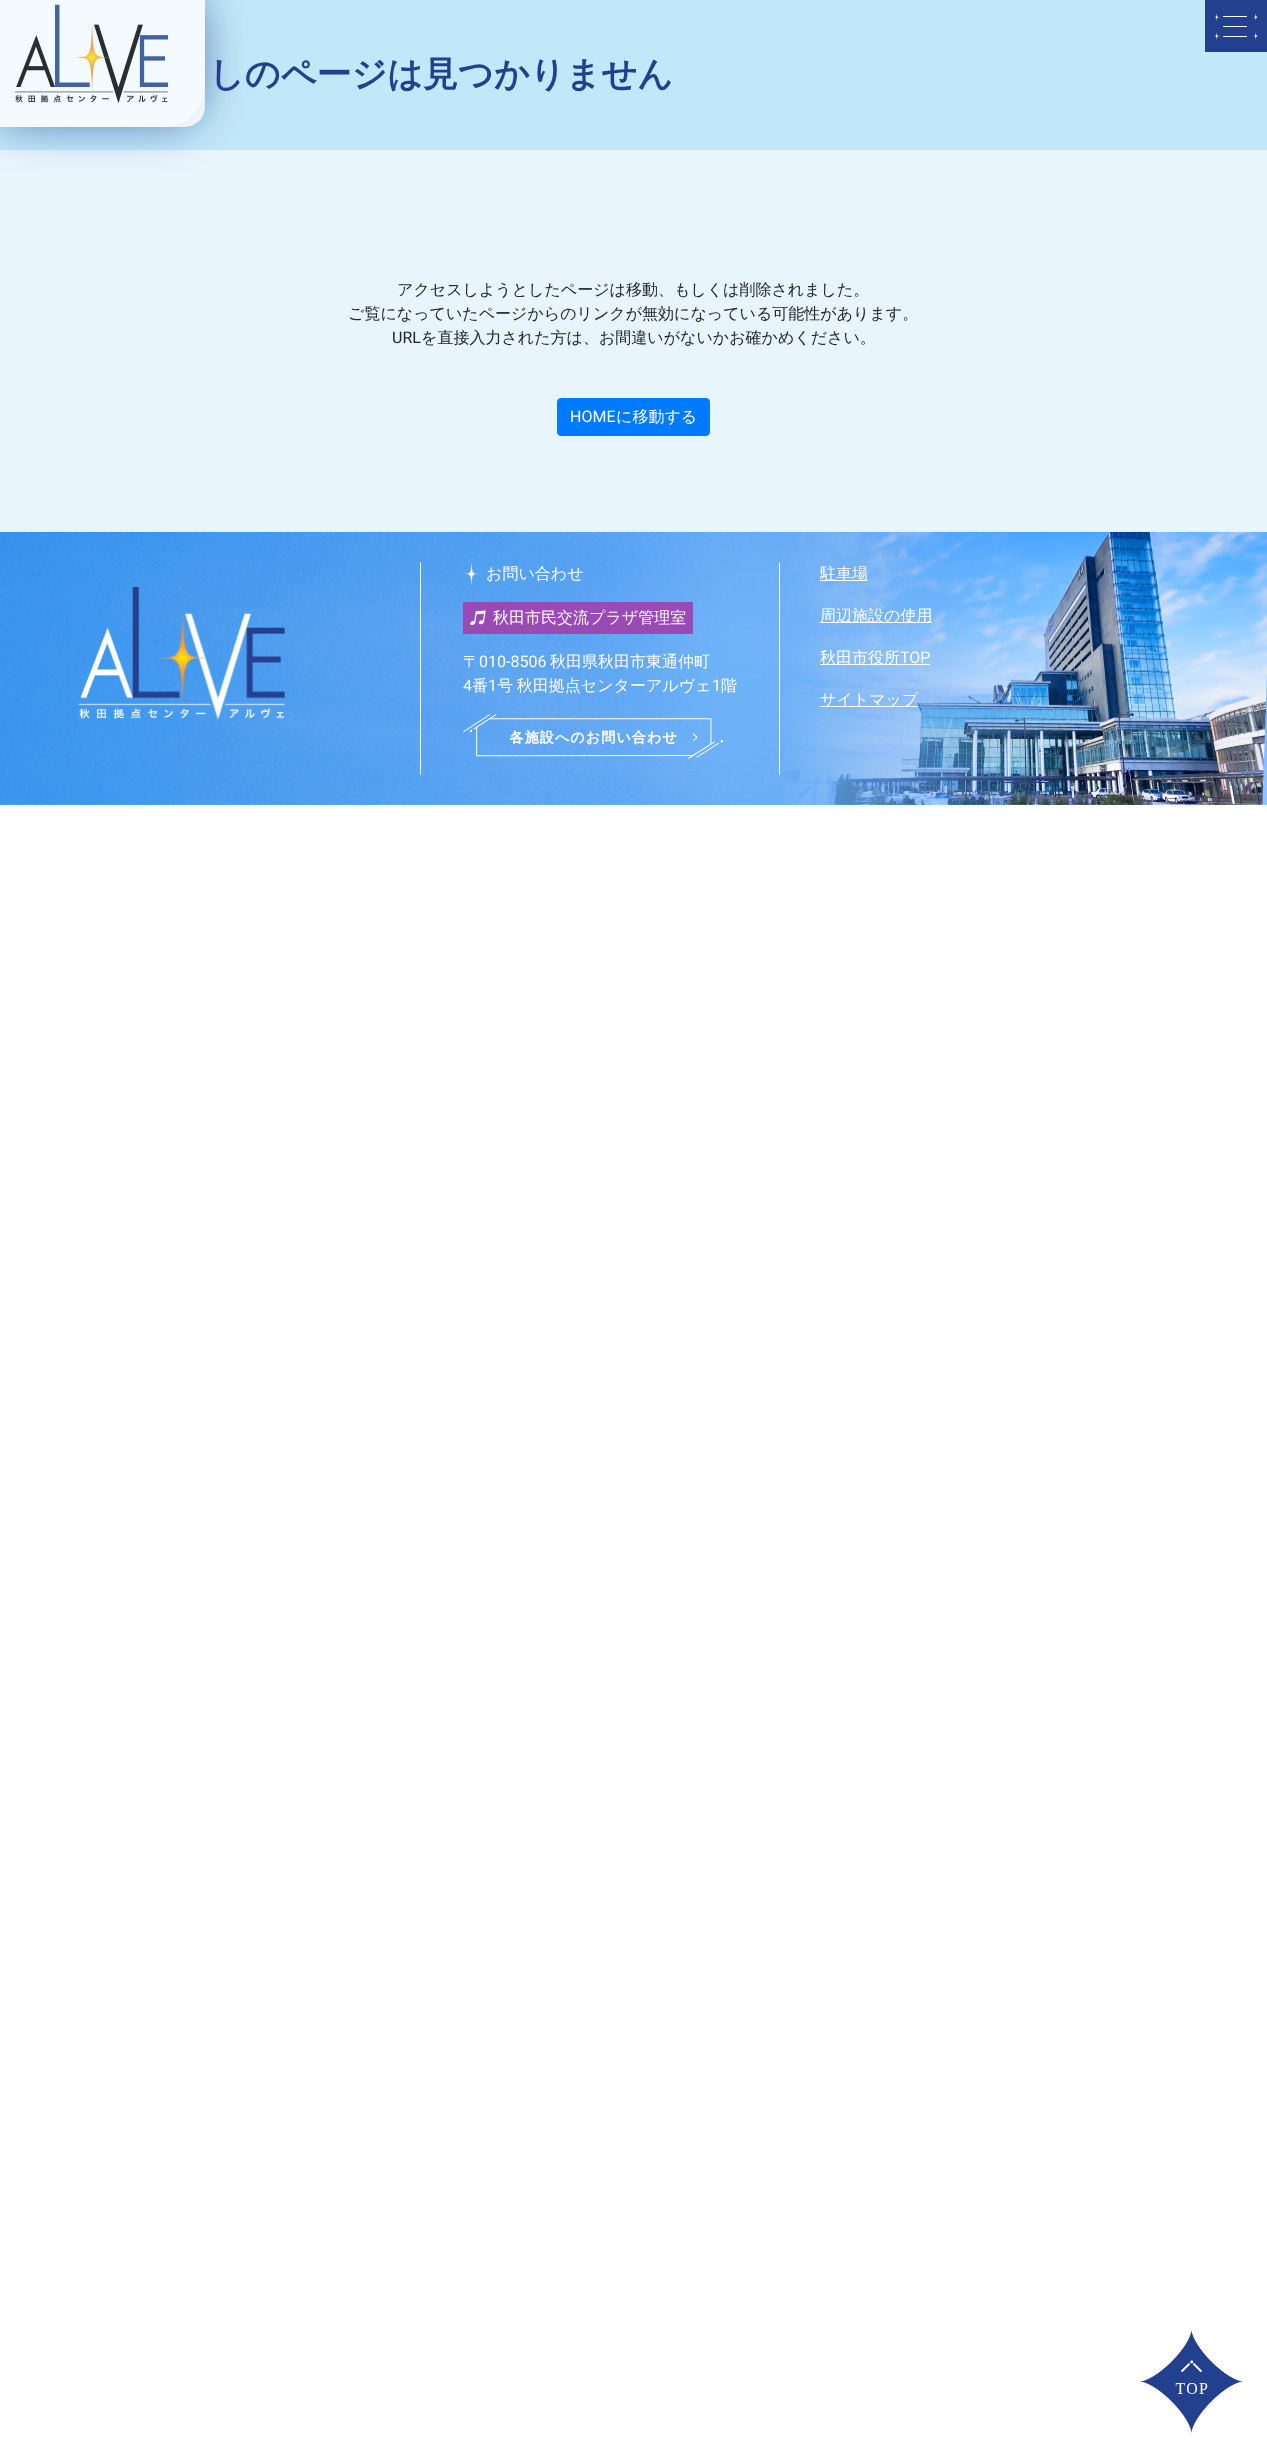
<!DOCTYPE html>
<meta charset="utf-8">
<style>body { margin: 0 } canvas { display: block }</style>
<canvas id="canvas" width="1267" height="2457"></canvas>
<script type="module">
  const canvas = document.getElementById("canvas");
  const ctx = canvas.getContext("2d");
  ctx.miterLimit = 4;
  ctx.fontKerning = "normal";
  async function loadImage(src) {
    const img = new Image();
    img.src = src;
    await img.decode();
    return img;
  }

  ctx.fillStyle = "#ffffff";
  ctx.fillRect(0, 0, 1267, 2457);
  ctx.fillStyle = "#c1e8f8";
  ctx.fillRect(0, 0, 1267, 150);
  ctx.fillStyle = "#e8f5fd";
  ctx.fillRect(0, 150, 1267, 382);
  ctx.save();
  ctx.beginPath();
  ctx.moveTo(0, 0);
  ctx.lineTo(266, 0);
  ctx.lineTo(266, 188);
  ctx.lineTo(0, 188);
  ctx.closePath();
  ctx.moveTo(-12, -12);
  ctx.lineTo(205, -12);
  ctx.lineTo(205, 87);
  ctx.bezierCurveTo(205, 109, 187, 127, 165, 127);
  ctx.lineTo(-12, 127);
  ctx.closePath();
  ctx.clip("evenodd");
  ctx.fillStyle = "rgba(35, 64, 143, 0.58)";
  ctx.filter = "blur(20px)";
  ctx.beginPath();
  ctx.roundRect(-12, -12, 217, 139, 40);
  ctx.fill();
  ctx.filter = "none";
  ctx.restore();
  ctx.drawImage(await loadImage("img1.png"), 0, 0, 205, 127);
  ctx.fillStyle = "#23408f";
  ctx.fillRect(1205, 0, 62, 52);
  ctx.drawImage(await loadImage("img2.png"), 1213, 13, 7, 27);
  ctx.fillStyle = "#ffffff";
  ctx.fillRect(1223, 16, 24, 1);
  ctx.drawImage(await loadImage("img2.png"), 1252, 13, 7, 27);
  ctx.fillRect(1223, 26, 24, 1);
  ctx.fillRect(1223, 36, 24, 1);
  ctx.font = "bold 35px WenQuanYi Zen Hei";
  ctx.fillStyle = "#23408f";
  ctx.fillText("しのページは見つかりません", 209, 86);
  ctx.font = "500 16px WenQuanYi Zen Hei";
  ctx.fillStyle = "#212529";
  ctx.fillText("アクセスしようとしたページは移動、もしくは削除されました。", 397, 295);
  ctx.fillText("ご覧になっていたページからのリンクが無効になっている可能性があります。", 348, 319);
  ctx.font = "16px Roboto";
  ctx.fillText("URL", 392, 343);
  ctx.font = "500 16px WenQuanYi Zen Hei";
  ctx.fillText("を直接入力された方は、お間違いがないかお確かめください。", 421, 343);
  ctx.fillStyle = "#007bff";
  ctx.beginPath();
  ctx.roundRect(557.5, 398.5, 152, 37, 3.5);
  ctx.fill();
  ctx.strokeStyle = "#007bff";
  ctx.stroke();
  ctx.font = "16px Roboto";
  ctx.fillStyle = "#ffffff";
  ctx.fillText("HOME", 570, 422);
  ctx.font = "500 16px WenQuanYi Zen Hei";
  ctx.fillText("に移動する", 616, 422);
  ctx.drawImage(await loadImage("img3.png"), 0, 532, 1267, 273);
  ctx.drawImage(await loadImage("img4.png"), 79, 587, 206, 133);
  ctx.fillRect(779, 562, 1, 213);
  ctx.fillRect(420, 562, 1, 213);
  ctx.drawImage(await loadImage("img5.png"), 463, 562, 17, 24);
  ctx.fillText("お問い合わせ", 486, 579);
  ctx.fillStyle = "#994ab5";
  ctx.fillRect(463, 602, 230, 32);
  ctx.drawImage(await loadImage("img6.png"), 470, 610, 16, 15);
  ctx.fillStyle = "#ffffff";
  ctx.fillText("秋田市民交流プラザ管理室", 493, 623);
  ctx.fillText("〒", 463, 667);
  ctx.font = "16px Roboto";
  ctx.fillText("010-8506", 479, 667);
  ctx.font = "500 16px WenQuanYi Zen Hei";
  ctx.fillText("秋田県秋田市東通仲町", 550, 667);
  ctx.font = "16px Roboto";
  ctx.fillText("4", 463, 691);
  ctx.font = "500 16px WenQuanYi Zen Hei";
  ctx.fillText("番", 472, 691);
  ctx.font = "16px Roboto";
  ctx.fillText("1", 488, 691);
  ctx.wordSpacing = "-1px";
  ctx.font = "500 16px WenQuanYi Zen Hei";
  ctx.fillText("号 秋田拠点センターアルヴェ", 497, 691);
  ctx.wordSpacing = "0px";
  ctx.font = "16px Roboto";
  ctx.fillText("1", 712, 691);
  ctx.font = "500 16px WenQuanYi Zen Hei";
  ctx.fillText("階", 721, 691);
  ctx.drawImage(await loadImage("img7.png"), 463, 714, 260, 45);
  ctx.drawImage(await loadImage("img8.png"), 784, 532, 483, 273);
  ctx.fillRect(820, 580, 48, 1);
  ctx.fillText("駐車場", 820, 579);
  ctx.fillRect(820, 622, 112, 1);
  ctx.fillText("周辺施設の使用", 820, 621);
  ctx.fillRect(820, 664, 110, 1);
  ctx.fillText("秋田市役所", 820, 663);
  ctx.font = "16px Roboto";
  ctx.fillText("TOP", 900, 663);
  ctx.fillRect(820, 706, 98, 1);
  ctx.font = "500 16px WenQuanYi Zen Hei";
  ctx.fillText("サイトマップ", 820, 705);
  ctx.drawImage(await loadImage("img9.png"), 1139, 2329, 105, 105);
</script>
